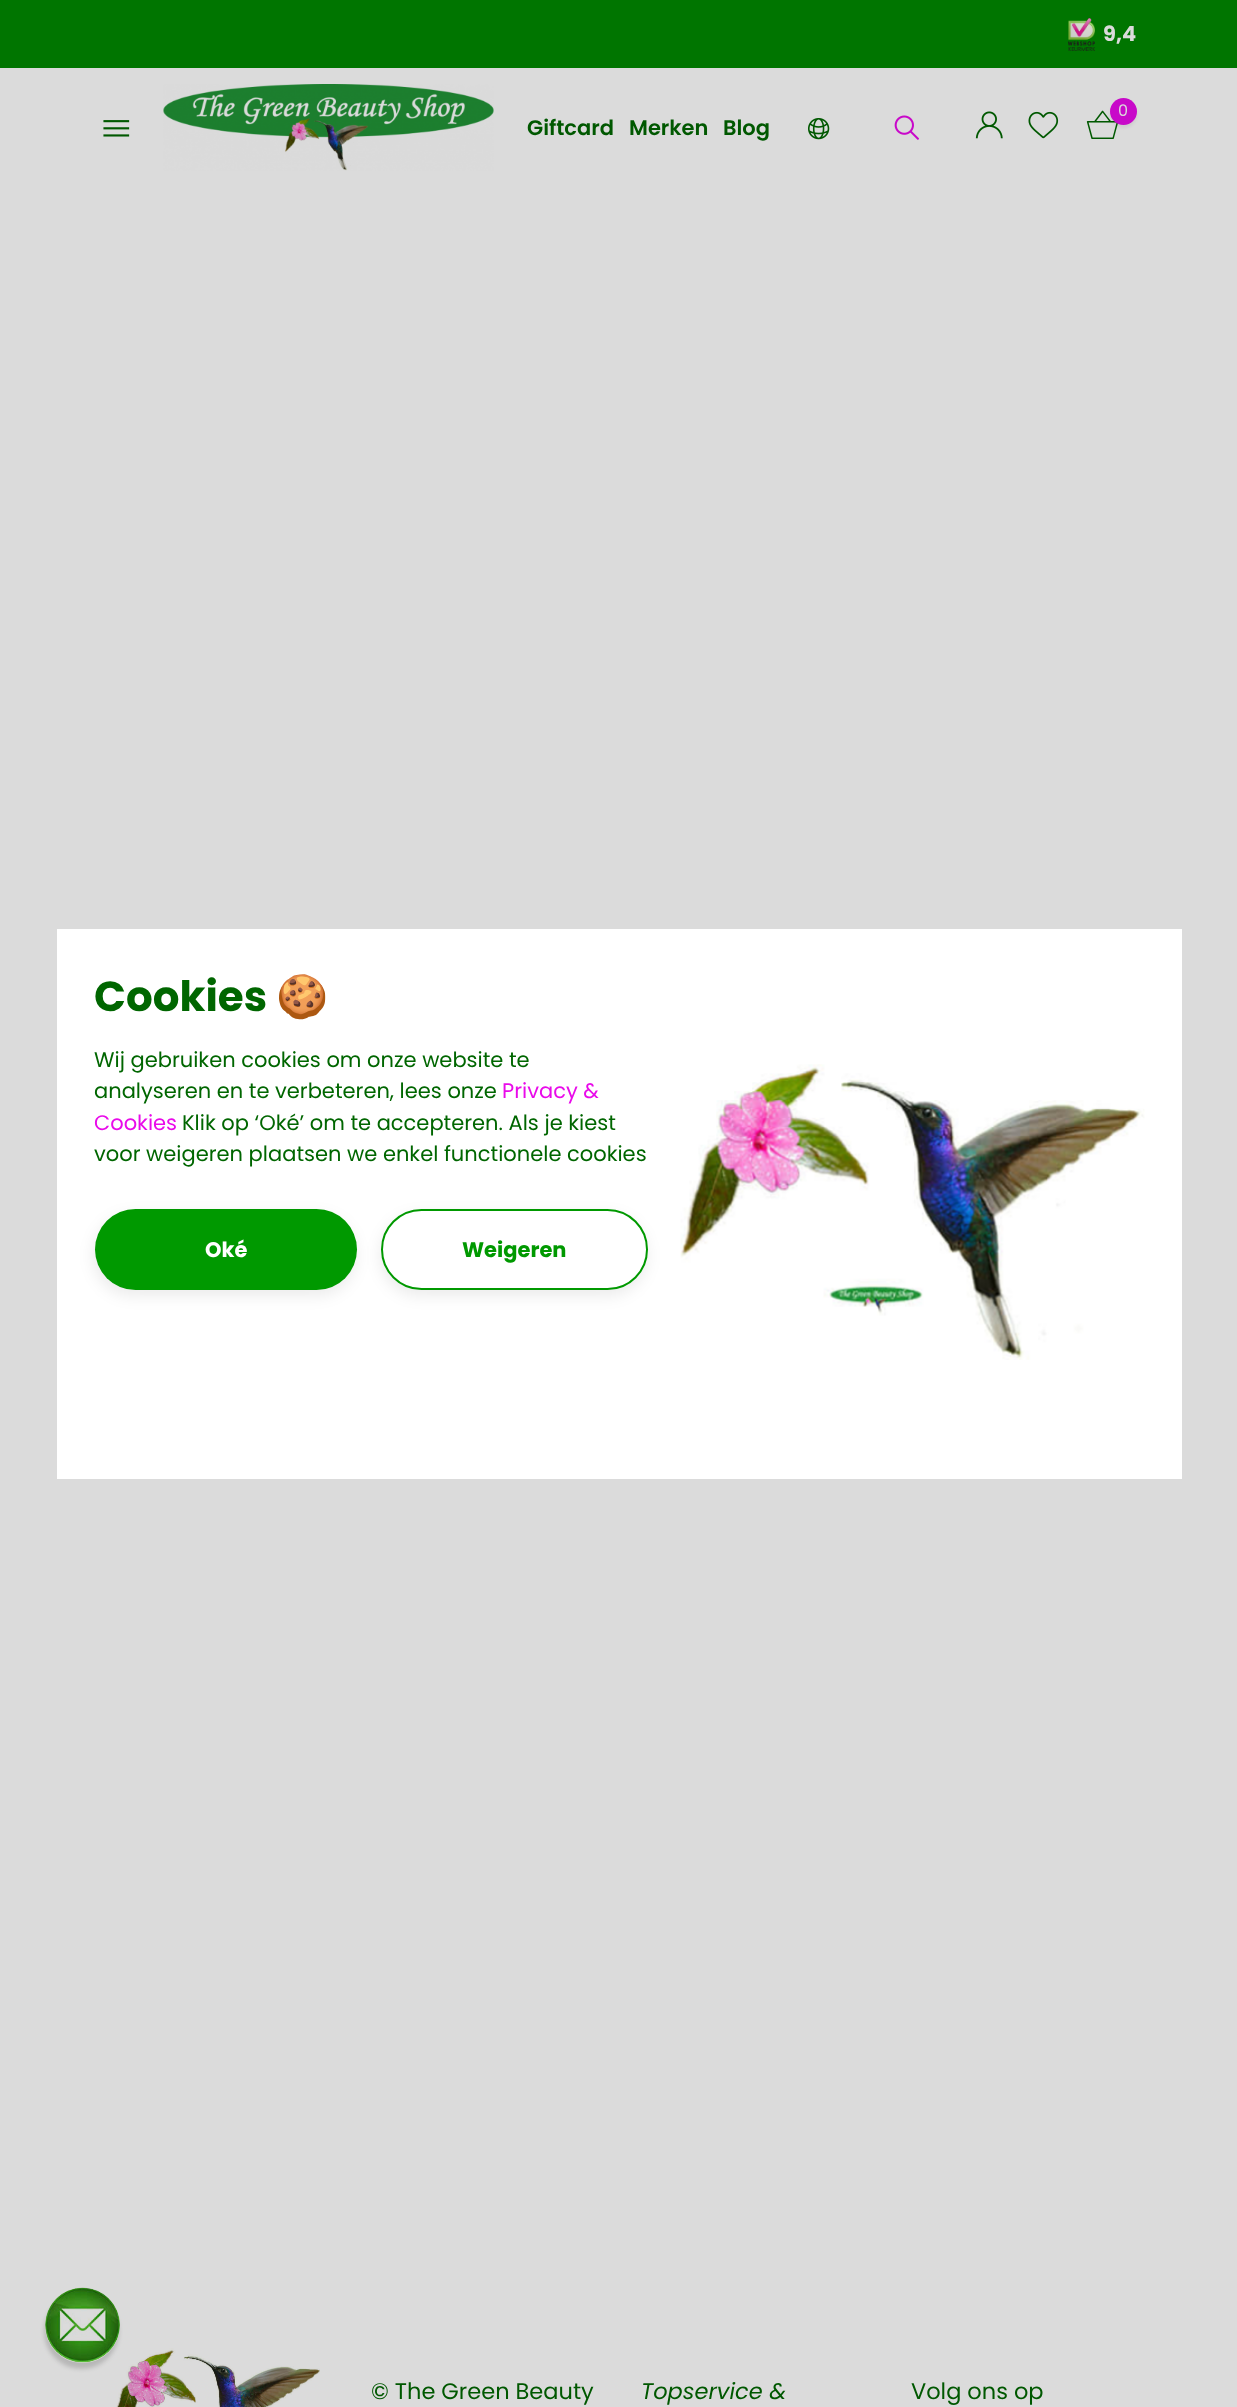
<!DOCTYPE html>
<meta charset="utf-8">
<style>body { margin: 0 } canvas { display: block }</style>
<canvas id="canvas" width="1237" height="2407"></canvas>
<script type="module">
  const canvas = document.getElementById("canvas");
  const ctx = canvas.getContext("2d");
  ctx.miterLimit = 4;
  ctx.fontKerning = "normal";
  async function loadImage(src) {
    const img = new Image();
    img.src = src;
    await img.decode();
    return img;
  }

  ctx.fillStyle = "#dbdbdb";
  ctx.fillRect(0, 0, 1237, 2407);
  ctx.fillStyle = "#007500";
  ctx.fillRect(0, 0, 1237, 68);
  ctx.drawImage(await loadImage("img1.png"), 1068, 18, 27, 33);
  ctx.font = "bold 21px Poppins";
  ctx.fillStyle = "#dbdbdb";
  ctx.fillText("9,4", 1103, 41);
  ctx.drawImage(await loadImage("img2.png"), 163, 84, 331, 87);
  ctx.drawImage(await loadImage("img3.png"), 1086, 110, 32, 29);
  ctx.fillStyle = "rgba(0, 0, 0, 0.06)";
  ctx.filter = "blur(1.5px)";
  ctx.beginPath();
  ctx.roundRect(1110, 101, 27, 27, 13.5);
  ctx.fill();
  ctx.filter = "none";
  ctx.fillStyle = "#c809c9";
  ctx.beginPath();
  ctx.arc(1123.5, 111.5, 13.5, 0, Math.PI * 2);
  ctx.fill();
  ctx.font = "16px Poppins";
  ctx.fillStyle = "#dbdbdb";
  ctx.fillText("0", 1118, 116);
  ctx.drawImage(await loadImage("img4.png"), 975, 111, 28, 28);
  ctx.drawImage(await loadImage("img5.png"), 1028, 111, 31, 28);
  ctx.drawImage(await loadImage("img6.png"), 103, 120, 27, 17);
  ctx.font = "600 21px Poppins";
  ctx.fillStyle = "#005800";
  ctx.fillText("Giftcard", 527, 135);
  ctx.fillText("Merken", 629, 135);
  ctx.fillText("Blog", 723, 135);
  ctx.drawImage(await loadImage("img7.png"), 808, 118, 22, 22);
  ctx.drawImage(await loadImage("img8.png"), 894, 115, 25, 25);
  ctx.fillStyle = "#ffffff";
  ctx.fillRect(57, 929, 1125, 550);
  ctx.font = "bold 42px Poppins";
  ctx.fillStyle = "#006600";
  ctx.fillText("Cookies", 94, 1011);
  ctx.font = "bold 42px Noto Color Emoji";
  ctx.fillText("🍪", 276, 1011);
  ctx.font = "21px Poppins";
  ctx.fillText("Wij gebruiken cookies om onze website te", 94, 1067);
  ctx.fillText("analyseren en te verbeteren, lees onze", 94, 1098);
  ctx.fillStyle = "#e90aea";
  ctx.fillText("Privacy &", 502, 1098);
  ctx.fillText("Cookies", 94, 1130);
  ctx.fillStyle = "#006600";
  ctx.fillText("Klik op ‘Oké’ om te accepteren. Als je kiest", 182, 1130);
  ctx.fillText("voor weigeren plaatsen we enkel functionele cookies", 94, 1161);
  ctx.fillStyle = "rgba(0, 0, 0, 0.08)";
  ctx.filter = "blur(7.5px)";
  ctx.beginPath();
  ctx.roundRect(93, 1215, 263, 81, 40.5);
  ctx.fill();
  ctx.filter = "none";
  ctx.fillStyle = "#009900";
  ctx.beginPath();
  ctx.roundRect(95, 1209, 262, 81, 40.5);
  ctx.fill();
  ctx.font = "bold 21px Poppins";
  ctx.fillStyle = "#ffffff";
  ctx.fillText("Oké", 205, 1257);
  ctx.fillStyle = "rgba(0, 0, 0, 0.08)";
  ctx.filter = "blur(7.5px)";
  ctx.beginPath();
  ctx.roundRect(380, 1215, 267, 81, 40.5);
  ctx.fill();
  ctx.filter = "none";
  ctx.fillStyle = "#ffffff";
  ctx.beginPath();
  ctx.roundRect(382, 1210, 265, 79, 39.5);
  ctx.fill();
  ctx.strokeStyle = "#009900";
  ctx.lineWidth = 2;
  ctx.stroke();
  ctx.fillStyle = "#009900";
  ctx.fillText("Weigeren", 462, 1257);
  ctx.drawImage(await loadImage("img9.png"), 680, 1064, 465, 296);
  ctx.drawImage(await loadImage("img11.png"), 116, 2348, 204, 59);
  ctx.fillStyle = "rgba(0, 0, 0, 0.16)";
  ctx.filter = "blur(2px)";
  ctx.beginPath();
  ctx.roundRect(44, 2294, 75, 75, 37.5);
  ctx.fill();
  ctx.filter = "none";
  ctx.fillStyle = "#dbdbdb";
  ctx.beginPath();
  ctx.arc(82.5, 2325.5, 37.5, 0, Math.PI * 2);
  ctx.fill();
  ctx.drawImage(await loadImage("img10.png"), 45, 2287, 75, 76);
  ctx.font = "22.5px Poppins";
  ctx.fillStyle = "#005800";
  ctx.fillText("© The Green Beauty", 371, 2399);
  ctx.font = "italic 22.5px Poppins";
  ctx.fillText("Topservice &", 641, 2399);
  ctx.font = "22.5px Poppins";
  ctx.fillText("Volg ons op", 911, 2399);
</script>
